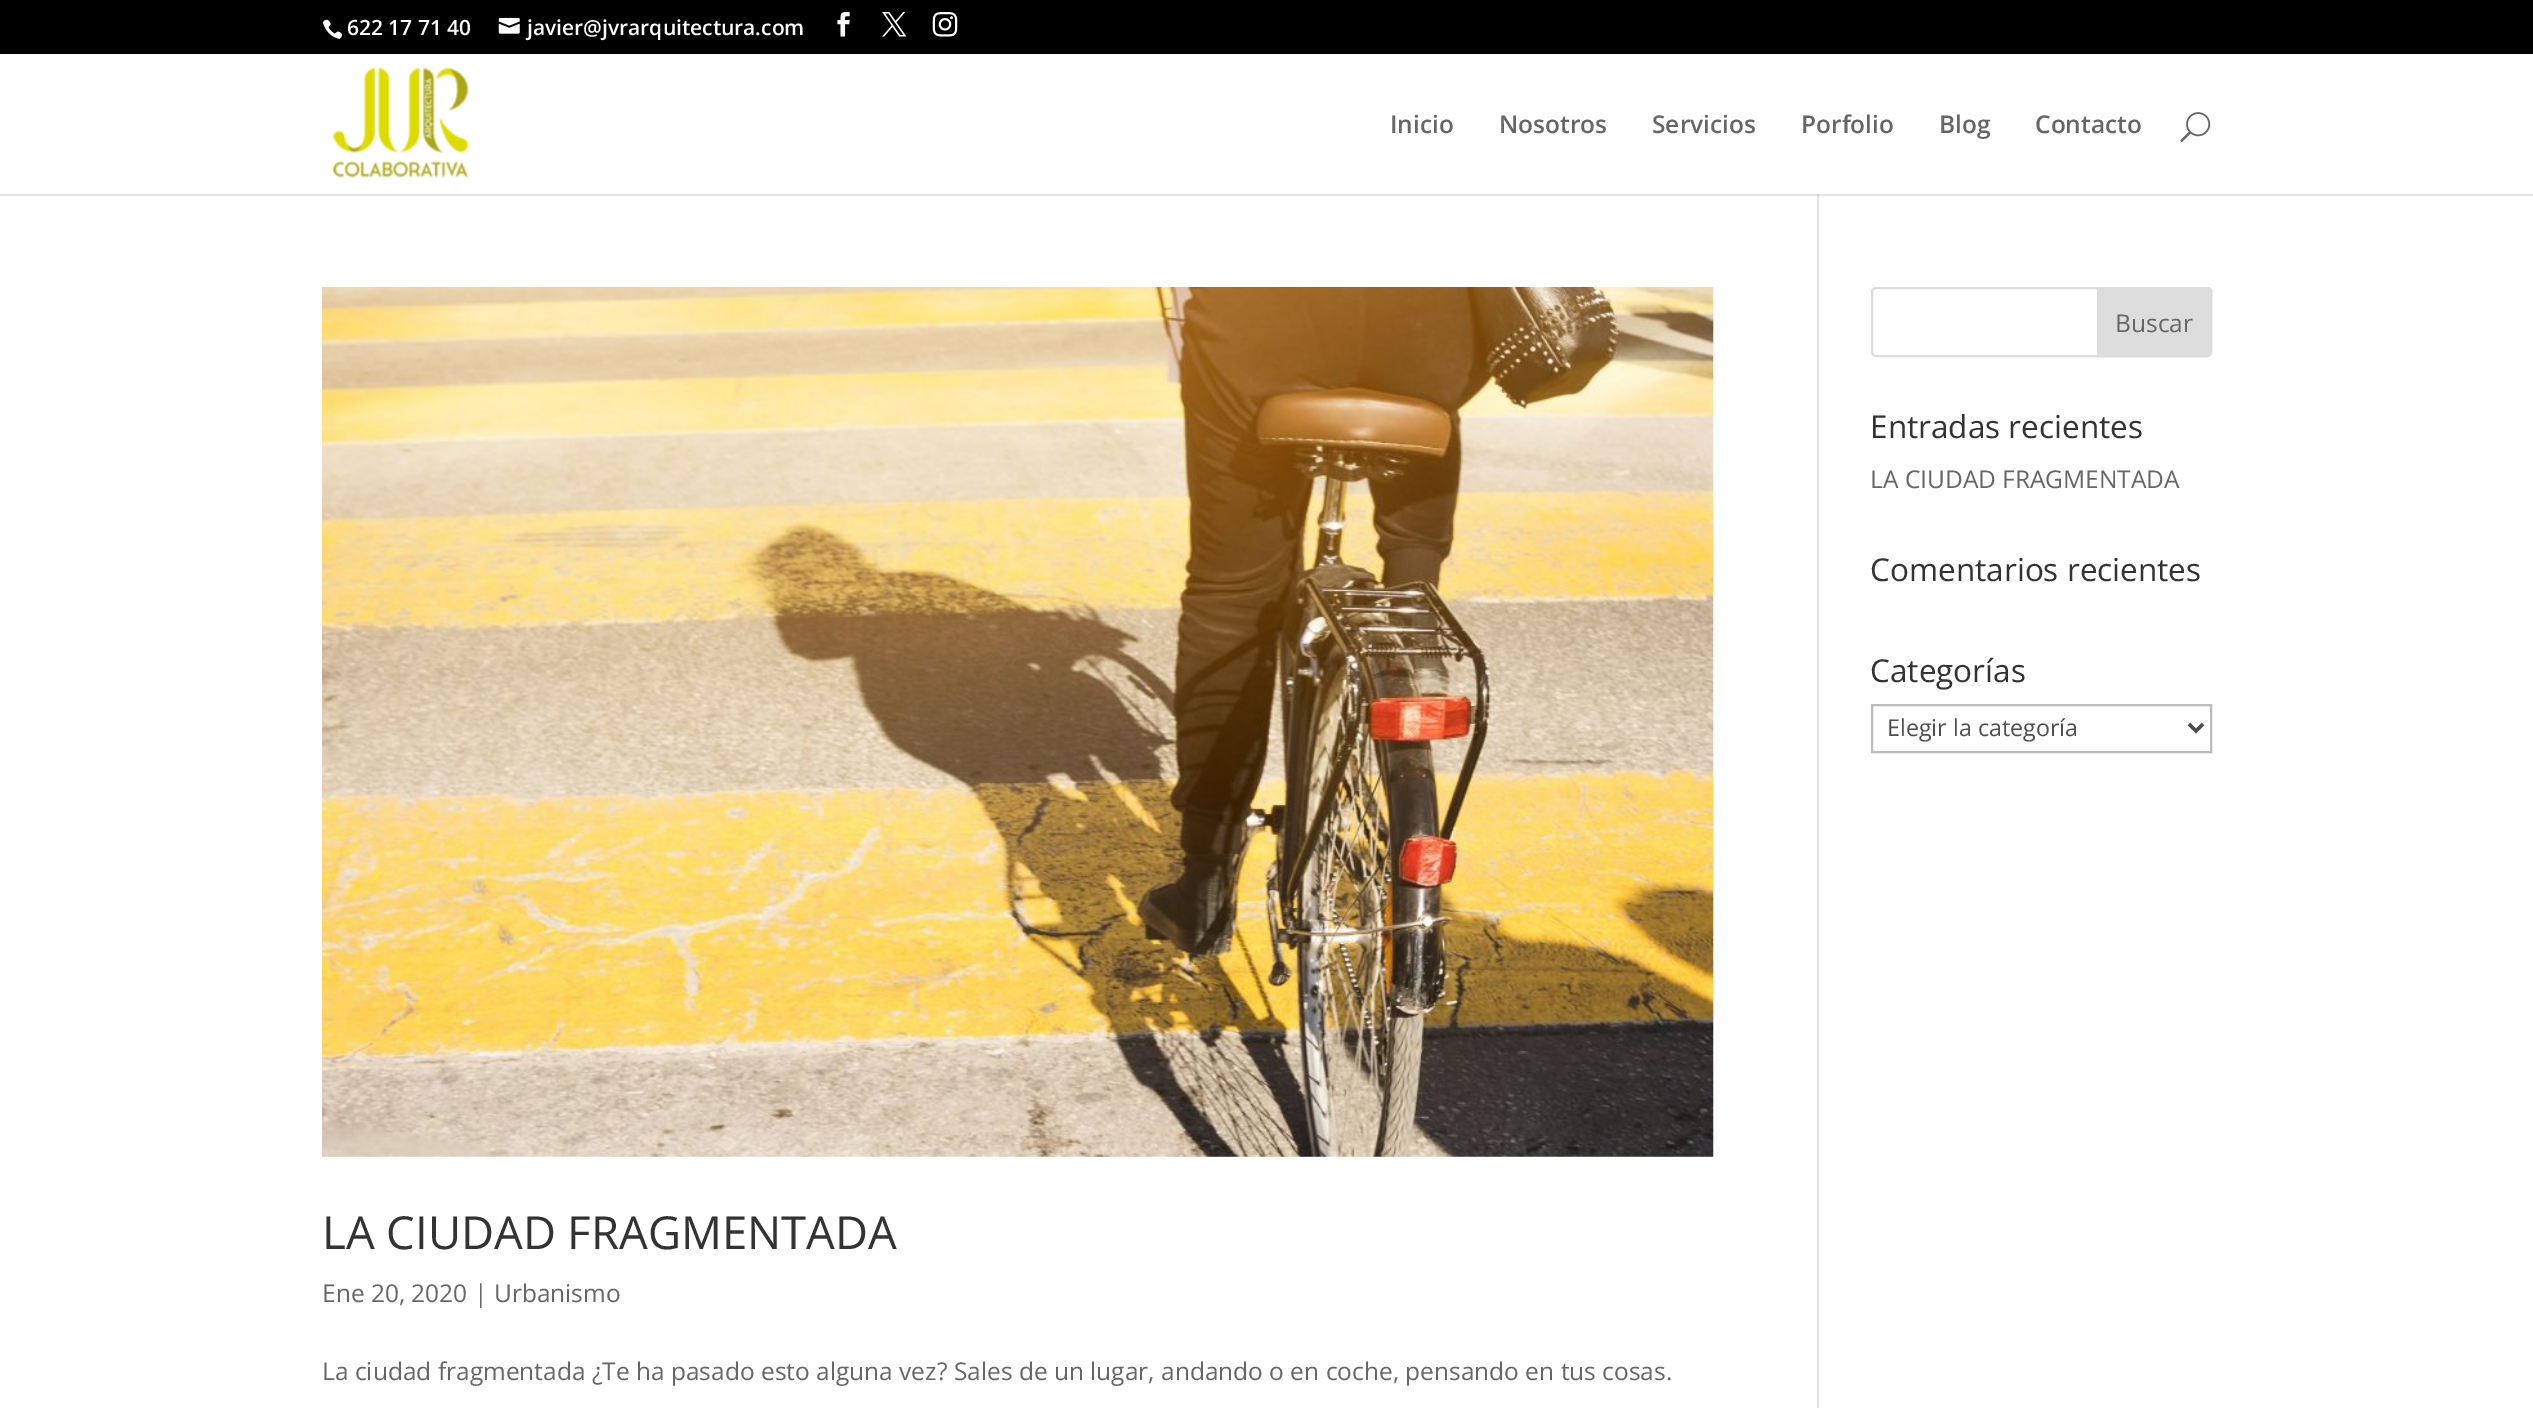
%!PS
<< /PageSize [2533 1408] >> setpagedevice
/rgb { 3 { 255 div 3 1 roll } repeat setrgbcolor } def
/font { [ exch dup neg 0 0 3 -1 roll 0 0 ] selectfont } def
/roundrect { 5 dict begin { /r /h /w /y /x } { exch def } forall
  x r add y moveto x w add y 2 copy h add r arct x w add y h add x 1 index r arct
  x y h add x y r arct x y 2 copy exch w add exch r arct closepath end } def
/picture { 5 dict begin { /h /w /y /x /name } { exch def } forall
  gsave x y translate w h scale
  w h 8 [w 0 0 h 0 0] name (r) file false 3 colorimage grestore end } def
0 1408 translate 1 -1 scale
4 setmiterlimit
255 255 255 rgb
0 0 2533 1408 rectfill
230 230 230 rgb
0 194 2533 2 rectfill
0 0 0 rgb
0 0 2533 54 rectfill
(img/1.rgb) 322 19 21 20 picture
(img/2.rgb) 498 17 22 17 picture
(img/3.rgb) 837 12 13 25 picture
(img/4.rgb) 882 12 25 25 picture
(img/5.rgb) 932 12 26 25 picture
(img/6.rgb) 332 67 137 111 picture
(img/7.rgb) 2180 112 31 30 picture
226 226 226 rgb
1817 196 2 1212 rectfill
203 203 203 rgb
1817 194 2 2 rectfill
221 221 221 rgb
2 setlinewidth
1872 288 339 68 4 roundrect stroke
2098 288 moveto 2207 288 lineto 2209 288 2211 290 2211 292 curveto 2211 352 lineto 2211 354 2209 356 2207 356 curveto 2098 356 lineto closepath gsave fill grestore
stroke
187 187 187 rgb
1872 705 339 47 rectstroke
78 78 78 rgb
3.5 setlinewidth
2189 724 moveto 2196 731 lineto 2203 724 lineto stroke
(img/8.rgb) 322 287 1392 870 picture
/OpenSans-SemiBold 21 font
255 255 255 rgb
347 35 moveto (622 17 71 40) show
527 35 moveto (javier@jvrarquitectura.com) show
/OpenSans-SemiBold 24.5 font
102 102 102 rgb
[
  [(Inicio) 1390 133]
  [(Nosotros) 1499 133]
  [(Servicios) 1652 133]
  [(Porfolio) 1801 133]
  [(Blog) 1939 133]
  [(Contacto) 2035 133]
] { aload pop moveto show } forall
/OpenSans-Regular 24.5 font
2115 332 moveto (Buscar) show
/OpenSans-Regular 31.5 font
51 51 51 rgb
1870 438 moveto (Entradas recientes) show
/OpenSans-Regular 24.5 font
102 102 102 rgb
1870 488 moveto (LA CIUDAD FRAGMENTADA) show
/OpenSans-Regular 31.5 font
51 51 51 rgb
1870 581 moveto (Comentarios recientes) show
1870 682 moveto (Categorías) show
/OpenSans-Regular 23.25 font
78 78 78 rgb
1887 736 moveto (Elegir la categoría) show
/OpenSans-Regular 45.5 font
51 51 51 rgb
322 1249 moveto (LA CIUDAD FRAGMENTADA) show
/OpenSans-Regular 24.5 font
102 102 102 rgb
322 1302 moveto (Ene 20, 2020 | Urbanismo) show
322 1380 moveto (La ciudad fragmentada ¿Te ha pasado esto alguna vez? Sales de un lugar, andando o en coche, pensando en tus cosas.) show
showpage
